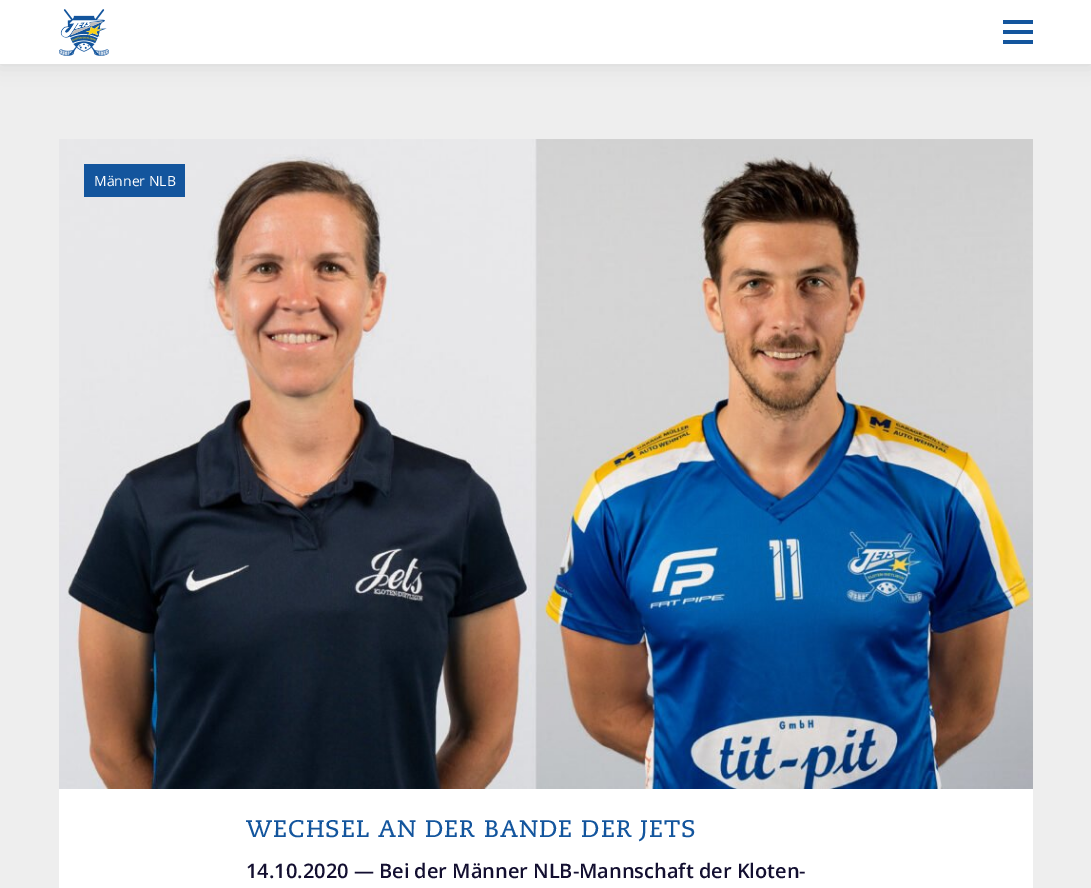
%!PS
<< /PageSize [1091 888] /PageUsesTransparency true >> setpagedevice
/rgb { 3 { 255 div 3 1 roll } repeat setrgbcolor } def
/font { [ exch dup neg 0 0 3 -1 roll 0 0 ] selectfont } def
/alpha { dup .setfillconstantalpha .setstrokeconstantalpha } def
/roundrect { 5 dict begin { /r /h /w /y /x } { exch def } forall
  x r add y moveto x w add y 2 copy h add r arct x w add y h add x 1 index r arct
  x y h add x y r arct x y 2 copy exch w add exch r arct closepath end } def
/shadow { 12 dict begin { /a /b /q /h /w /y /x } { exch def } forall gsave /was 0 def
  9 -2 -9 { dup b mul 4 div /e exch def 1 sub .425 mul 2.718 exch exp 1 add a .99 .min exch div /now exch def
    1 1 now sub 1 was sub div sub alpha /was now def
    w h .min e 2 mul add 0 gt { x e sub y e sub w e 2 mul add h e 2 mul add
      q e add b .6 mul add w h .min 2 div e add .min 0 .max roundrect fill } if } for grestore end } def
/picture { 5 dict begin { /h /w /y /x /name } { exch def } forall
  gsave x y translate w h scale
  w h 8 [w 0 0 h 0 0] name (r) file false 3 colorimage grestore end } def
0 .pushpdf14devicefilter
0 888 translate 1 -1 scale
4 setmiterlimit
238 238 238 rgb
0 0 1091 888 rectfill
63 71 80 rgb
0 0 1091 64 0 10 0.15 shadow
255 255 255 rgb
0 0 1091 64 rectfill
(img/1.rgb) 59 9 50 47 picture
[
  [1003 40 30 4 19 85 157]
  [1003 20 30 4 19 85 157]
  [1003 30 30 4 19 85 157]
  [59 789 974 99 255 255 255]
] { aload pop rgb rectfill } forall
(img/2.rgb) 59 139 974 650 picture
19 85 157 rgb
84 164 101 33 rectfill
/OpenSans-Regular 14 font
255 255 255 rgb
94 186 moveto (Männer NLB) show
/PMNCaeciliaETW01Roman-Regular 24 font
19 85 157 rgb
246 837 moveto 1 0 (WECHSEL AN DER BANDE DER JETS) ashow
/OpenSans-SemiBold 20 font
19 15 48 rgb
246 878 moveto (14.10.2020 — Bei der Männer NLB-Mannschaft der Kloten-) show
.poppdf14devicefilter showpage
